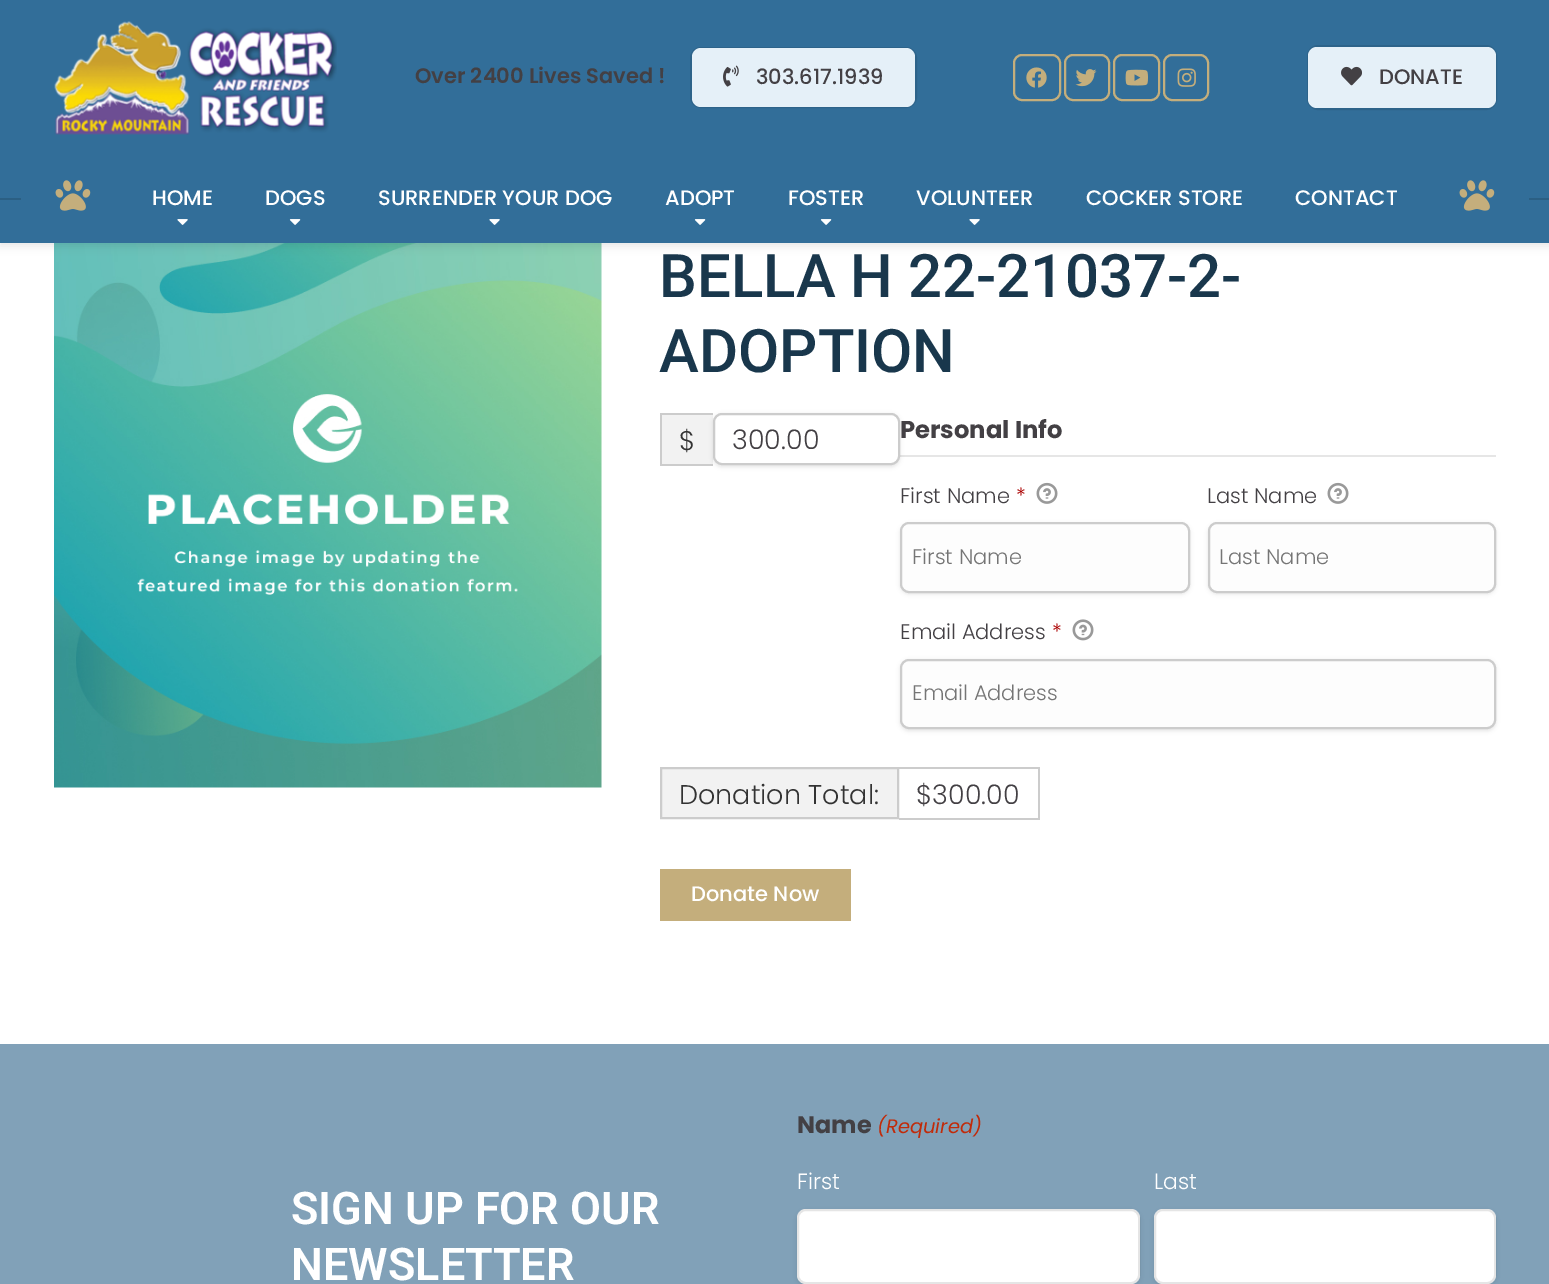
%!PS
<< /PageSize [1549 1284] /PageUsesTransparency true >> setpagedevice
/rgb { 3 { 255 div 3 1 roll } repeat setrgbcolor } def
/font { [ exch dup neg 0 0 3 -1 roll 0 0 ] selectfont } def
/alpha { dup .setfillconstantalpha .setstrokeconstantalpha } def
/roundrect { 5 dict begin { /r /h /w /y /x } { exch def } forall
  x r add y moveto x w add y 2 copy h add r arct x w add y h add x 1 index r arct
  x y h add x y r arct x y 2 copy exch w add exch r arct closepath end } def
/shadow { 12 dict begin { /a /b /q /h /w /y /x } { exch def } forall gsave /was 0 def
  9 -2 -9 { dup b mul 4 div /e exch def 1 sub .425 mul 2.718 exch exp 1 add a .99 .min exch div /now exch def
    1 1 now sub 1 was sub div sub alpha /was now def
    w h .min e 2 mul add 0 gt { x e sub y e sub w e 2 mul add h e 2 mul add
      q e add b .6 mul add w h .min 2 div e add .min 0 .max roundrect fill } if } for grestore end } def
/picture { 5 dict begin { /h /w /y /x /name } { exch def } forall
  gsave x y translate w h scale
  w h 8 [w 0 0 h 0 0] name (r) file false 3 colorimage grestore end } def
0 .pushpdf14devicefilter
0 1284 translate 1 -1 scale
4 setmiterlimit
255 255 255 rgb
0 0 1549 1284 rectfill
(img/11.rgb) 54 243 548 545 picture
0 0 0 rgb
0 3 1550 243 0 4.5 0.1 shadow
50 110 153 rgb
0 0 1549 243 rectfill
(img/1.rgb) 54 21 283 114 picture
45 99 138 rgb
2 setlinewidth
691 48 225 59 10 roundrect stroke
229 240 248 rgb
692 48 223 59 9 roundrect fill
(img/2.rgb) 723 65 16 22 picture
196 174 124 rgb
1014 55 46 45 8 roundrect stroke
(img/3.rgb) 1026 67 21 21 picture
1065 55 44 45 8 roundrect stroke
(img/4.rgb) 1075 69 22 18 picture
1114 55 45 45 8 roundrect stroke
(img/5.rgb) 1125 69 23 17 picture
1164 55 44 45 8 roundrect stroke
(img/6.rgb) 1177 68 19 19 picture
45 99 138 rgb
1308 46 188 63 10 roundrect stroke
229 240 248 rgb
1308 47 188 61 9 roundrect fill
(img/7.rgb) 1341 66 21 20 picture
43 95 131 rgb
0 198 21 2 rectfill
(img/8.rgb) 55 180 36 31 picture
(img/9.rgb) 177 219 11 6 picture
(img/10.rgb) 289 219 12 6 picture
(img/9.rgb) 489 219 11 6 picture
(img/10.rgb) 694 219 12 6 picture
(img/10.rgb) 820 219 12 6 picture
(img/9.rgb) 969 219 11 6 picture
(img/8.rgb) 1459 180 36 31 picture
1529 198 20 2 rectfill
230 230 230 rgb
900 455 596 2 rectfill
(img/12.rgb) 1036 482 22 22 picture
0 0 0 rgb
900 524 290 70 9 2 0.1 shadow
253 253 253 rgb
901 523 288 69 8 roundrect gsave fill grestore
204 204 204 rgb
stroke
(img/12.rgb) 1327 482 22 22 picture
0 0 0 rgb
1208 524 288 70 9 2 0.1 shadow
253 253 253 rgb
1209 523 286 69 8 roundrect gsave fill grestore
204 204 204 rgb
stroke
(img/13.rgb) 1072 619 22 22 picture
0 0 0 rgb
900 660 596 71 9 2 0.1 shadow
253 253 253 rgb
901 660 594 68 8 roundrect gsave fill grestore
204 204 204 rgb
stroke
242 242 242 rgb
661 768 moveto 898 768 lineto 898 818 lineto 661 818 lineto closepath gsave fill grestore
204 204 204 rgb
stroke
[
  [899 767 141 2 204 204 204]
  [1038 767 2 52 204 204 204]
  [899 818 141 2 204 204 204]
  [660 869 191 52 196 174 124]
  [662 415 51 49 242 242 242]
  [660 413 53 2 204 204 204]
  [660 464 53 2 204 204 204]
  [660 413 2 52 204 204 204]
] { aload pop rgb rectfill } forall
0 0 0 rgb
713 414 187 53 9 2 0.1 shadow
255 255 255 rgb
714 414 185 50 8 roundrect gsave fill grestore
204 204 204 rgb
stroke
129 161 184 rgb
0 1044 1549 240 rectfill
0 0 0 rgb
797 1211 343 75 9 2 0.1 shadow
255 255 255 rgb
797 1209 343 75 9 roundrect fill
0.1 alpha
0 0 0 rgb
798 1210 341 73 8 roundrect stroke
1 alpha
1154 1211 342 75 9 2 0.1 shadow
255 255 255 rgb
1154 1209 342 75 9 roundrect fill
0.1 alpha
0 0 0 rgb
1155 1210 340 73 8 roundrect stroke
/Poppins-SemiBold 21 font
1 alpha
67 64 68 rgb
415 83 moveto (Over 2400 Lives Saved !) show
/Poppins-Medium 21 font
756 84 moveto (303.617.1939) show
1379 84 moveto (DONATE) show
255 255 255 rgb
[
  [(HOME) 152 205]
  [(DOGS) 265 205]
  [(SURRENDER YOUR DOG) 378 205]
  [(ADOPT) 665 205]
  [(FOSTER) 788 205]
  [(VOLUNTEER) 916 205]
  [(COCKER STORE) 1086 205]
  [(CONTACT) 1295 205]
] { aload pop moveto show } forall
/Roboto-Medium 60 font
25 55 76 rgb
659 297 moveto (BELLA H 22-21037-2-) show
659 372 moveto (ADOPTION) show
/Poppins-Bold 24.25 font
67 64 68 rgb
900 438 moveto (Personal Info) show
/Poppins-Light 21 font
900 503 moveto (First Name) show
170 0 0 rgb
1016 503 moveto (*) show
117 117 117 rgb
912 564 moveto (First Name) show
67 64 68 rgb
1207 503 moveto (Last Name) show
117 117 117 rgb
1219 564 moveto (Last Name) show
67 64 68 rgb
900 639 moveto (Email Address) show
170 0 0 rgb
1052 639 moveto (*) show
117 117 117 rgb
912 700 moveto (Email Address) show
/Poppins-Light 27 font
51 51 51 rgb
679 804 moveto (Donation Total:) show
67 64 68 rgb
916 804 moveto ($300.00) show
/Poppins-Medium 21 font
255 255 255 rgb
691 901 moveto (Donate Now) show
/Poppins-Light 27 font
51 51 51 rgb
679 450 moveto ($) show
67 64 68 rgb
732 449 moveto (300.00) show
/Poppins-Bold 24 font
797 1133 moveto (Name) show
/Poppins-Italic 19.5 font
192 43 10 rgb
877 1133 moveto (\(Required\)) show
/Poppins-Light 22 font
255 255 255 rgb
797 1189 moveto (First) show
1154 1189 moveto (Last) show
/Roboto-SemiBold 45 font
291 1224 moveto (SIGN UP FOR OUR) show
291 1280 moveto (NEWSLETTER) show
.poppdf14devicefilter showpage
